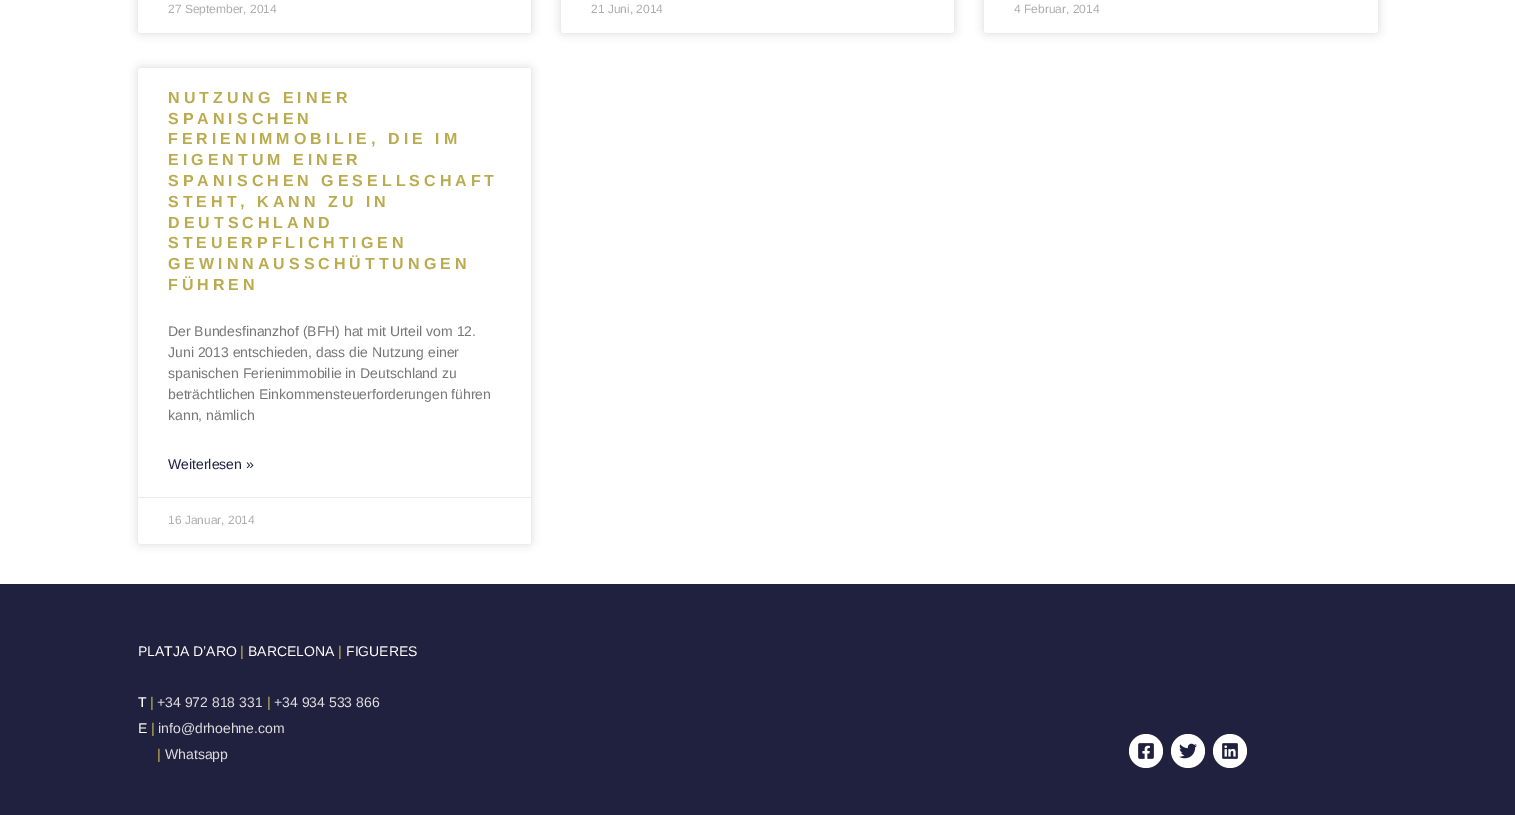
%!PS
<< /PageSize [1515 815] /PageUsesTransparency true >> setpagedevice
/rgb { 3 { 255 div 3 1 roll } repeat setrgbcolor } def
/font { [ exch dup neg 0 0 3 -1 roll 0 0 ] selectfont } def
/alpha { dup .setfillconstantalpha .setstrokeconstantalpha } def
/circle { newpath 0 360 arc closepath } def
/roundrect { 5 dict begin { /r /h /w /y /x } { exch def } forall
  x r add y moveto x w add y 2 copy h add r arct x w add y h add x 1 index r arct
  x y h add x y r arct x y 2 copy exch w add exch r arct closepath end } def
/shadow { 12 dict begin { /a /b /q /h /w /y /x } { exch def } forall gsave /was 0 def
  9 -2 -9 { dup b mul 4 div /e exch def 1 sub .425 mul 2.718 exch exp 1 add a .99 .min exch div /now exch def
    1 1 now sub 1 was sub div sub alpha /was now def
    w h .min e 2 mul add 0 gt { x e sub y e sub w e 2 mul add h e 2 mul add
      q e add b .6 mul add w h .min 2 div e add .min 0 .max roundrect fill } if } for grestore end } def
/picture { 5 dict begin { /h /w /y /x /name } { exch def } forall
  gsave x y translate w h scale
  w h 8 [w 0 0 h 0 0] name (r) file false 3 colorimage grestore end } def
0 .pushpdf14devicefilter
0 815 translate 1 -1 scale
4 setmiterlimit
255 255 255 rgb
0 0 1515 815 rectfill
0 0 0 rgb
138 -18 393 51 3 5 0.15 shadow
255 255 255 rgb
138 -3 393 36 3 roundrect fill
0 0 0 rgb
561 -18 393 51 3 5 0.15 shadow
255 255 255 rgb
561 -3 393 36 3 roundrect fill
0 0 0 rgb
984 -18 394 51 3 5 0.15 shadow
255 255 255 rgb
984 -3 394 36 3 roundrect fill
0 0 0 rgb
138 68 393 476 3 5 0.15 shadow
255 255 255 rgb
138 68 393 476 3 roundrect fill
234 234 234 rgb
138 497 393 1 rectfill
31 33 63 rgb
0 584 1515 231 rectfill
255 255 255 rgb
1146 751 17 circle fill
(img/1.rgb) 1138 743 16 16 picture
1188 751 17 circle fill
(img/2.rgb) 1179 743 18 16 picture
1230 751 17 circle fill
(img/3.rgb) 1222 743 16 16 picture
/LiberationSans-Regular 12 font
173 173 173 rgb
[
  [(27 September, 2014) 168 13]
  [(21 Juni, 2014) 591 13]
  [(4 Februar, 2014) 1014 13]
] { aload pop moveto show } forall
/LiberationSans-Bold 16 font
186 171 79 rgb
168 103 moveto 4 0 (NUTZUNG EINER) ashow
168 124 moveto 4 0 (SPANISCHEN) ashow
168 144 moveto 4 0 (FERIENIMMOBILIE, DIE IM) ashow
168 165 moveto 4 0 (EIGENTUM EINER) ashow
168 186 moveto 4 0 (SPANISCHEN GESELLSCHAFT) ashow
168 207 moveto 4 0 (STEHT, KANN ZU IN) ashow
168 228 moveto 4 0 (DEUTSCHLAND) ashow
168 248 moveto 4 0 (STEUERPFLICHTIGEN) ashow
168 269 moveto 4 0 (GEWINNAUSSCHÜTTUNGEN) ashow
168 290 moveto 4 0 (FÜHREN) ashow
/LiberationSans-Regular 14 font
119 119 119 rgb
[
  [(Der Bundesfinanzhof \(BFH\) hat mit Urteil vom 12.) 168 336]
  [(Juni 2013 entschieden, dass die Nutzung einer) 168 357]
  [(spanischen Ferienimmobilie in Deutschland zu) 168 378]
  [(beträchtlichen Einkommensteuerforderungen führen) 168 399]
  [(kann, nämlich) 168 420]
] { aload pop moveto show } forall
31 33 63 rgb
168 469 moveto (Weiterlesen ») show
/LiberationSans-Regular 12 font
173 173 173 rgb
168 524 moveto (16 Januar, 2014) show
/LiberationSans-Regular 14 font
255 255 255 rgb
138 656 moveto (PLATJA D’ARO) show
186 171 79 rgb
240 656 moveto (|) show
255 255 255 rgb
248 656 moveto (BARCELONA) show
186 171 79 rgb
338 656 moveto (|) show
255 255 255 rgb
346 656 moveto (FIGUERES) show
138 707 moveto (T) show
186 171 79 rgb
150 707 moveto (|) show
221 221 221 rgb
157 707 moveto (+34 972 818 331) show
186 171 79 rgb
267 707 moveto (|) show
221 221 221 rgb
274 707 moveto (+34 934 533 866) show
255 255 255 rgb
138 733 moveto (E) show
186 171 79 rgb
151 733 moveto (|) show
221 221 221 rgb
158 733 moveto (info@drhoehne.com) show
186 171 79 rgb
157 759 moveto (|) show
221 221 221 rgb
165 759 moveto (Whatsapp) show
.poppdf14devicefilter showpage
